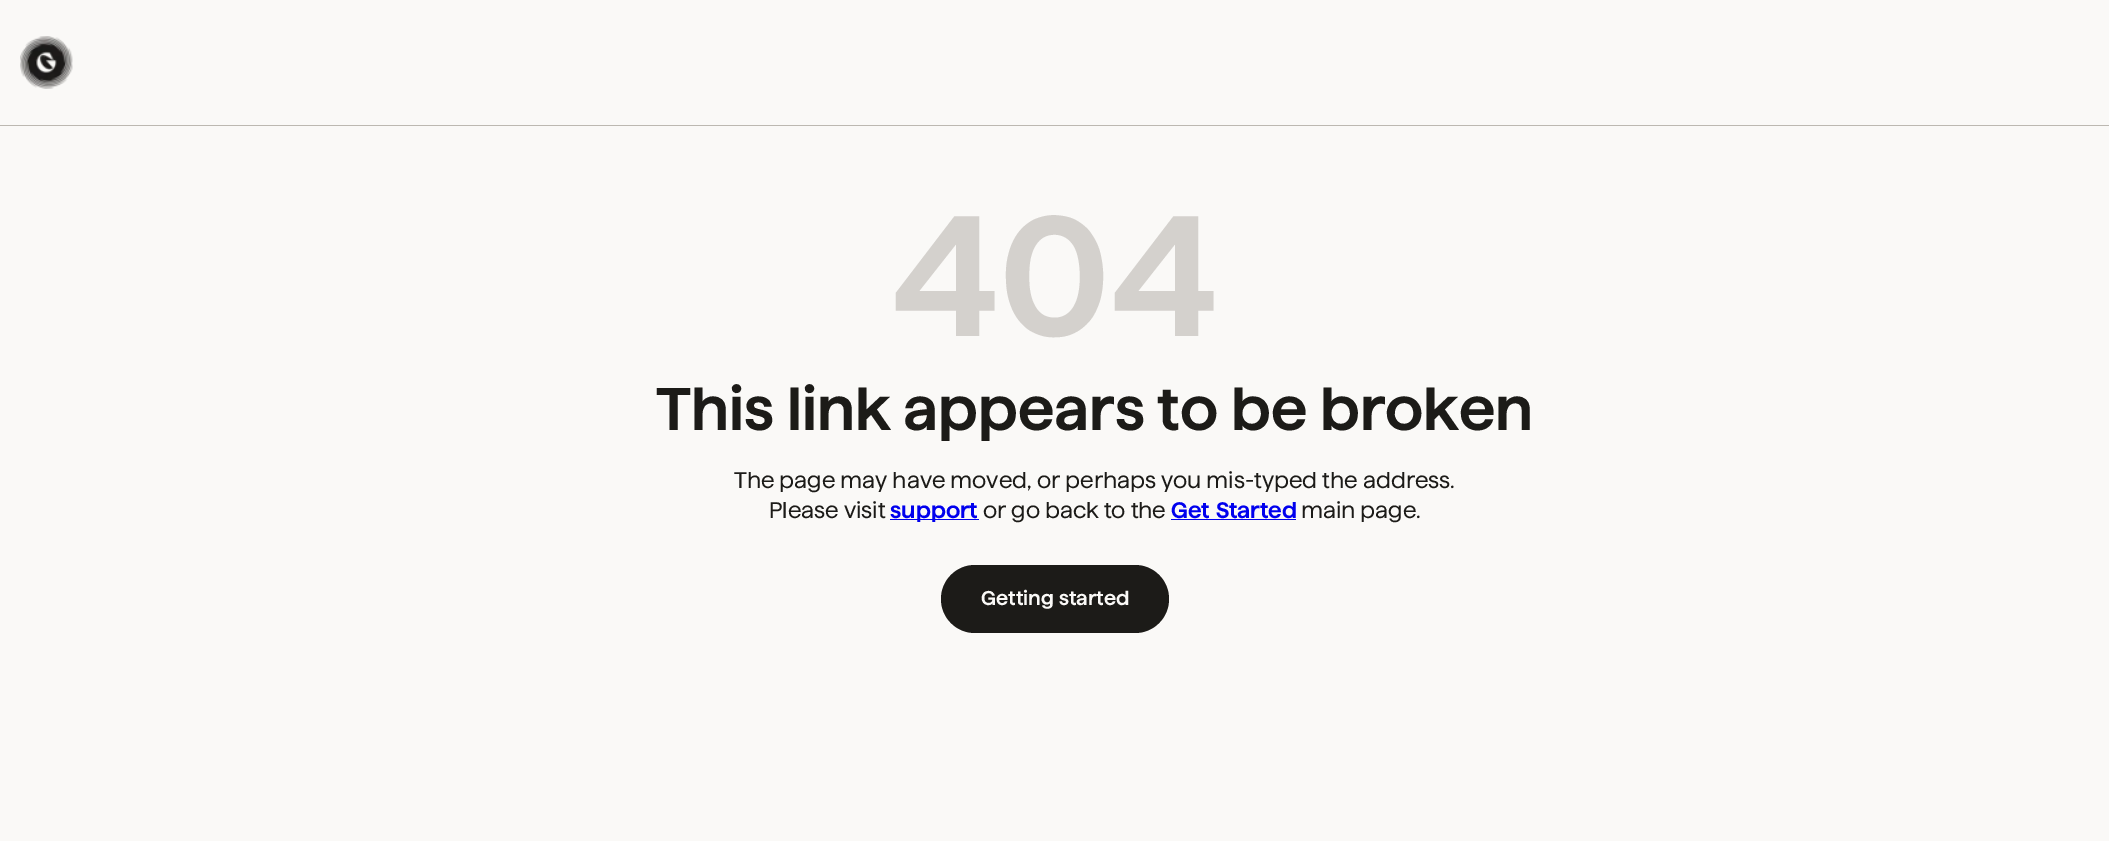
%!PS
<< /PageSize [2109 841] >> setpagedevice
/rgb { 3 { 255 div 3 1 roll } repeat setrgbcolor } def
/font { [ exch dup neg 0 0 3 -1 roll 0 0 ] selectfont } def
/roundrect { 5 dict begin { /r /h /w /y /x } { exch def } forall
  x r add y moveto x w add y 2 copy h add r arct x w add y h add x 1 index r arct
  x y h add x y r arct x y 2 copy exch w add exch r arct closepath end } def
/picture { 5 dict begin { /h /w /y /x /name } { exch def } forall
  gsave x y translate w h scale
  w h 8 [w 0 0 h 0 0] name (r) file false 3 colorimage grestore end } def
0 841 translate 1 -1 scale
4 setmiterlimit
250 249 247 rgb
0 0 2109 841 rectfill
188 184 177 rgb
0 125 2109 1 rectfill
(img/1.rgb) 20 36 53 53 picture
0 0 238 rgb
890 519 89 1 rectfill
1171 519 125 1 rectfill
28 27 24 rgb
941 565 228 68 34 roundrect fill
/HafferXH-SemiBold 171 font
212 209 205 rgb
892 336 moveto (404) show
/HafferXH-SemiBold 60 font
28 27 24 rgb
656 430 moveto (This link appears to be broken) show
/HafferXH-Regular 22.5 font
734 488 moveto (The page may have moved, or perhaps you mis-typed the address.) show
769 518 moveto (Please visit) show
/HafferXH-SemiBold 22.5 font
0 0 238 rgb
890 518 moveto (support) show
/HafferXH-Regular 22.5 font
28 27 24 rgb
983 518 moveto (or go back to the) show
/HafferXH-SemiBold 22.5 font
0 0 238 rgb
1171 518 moveto 1 0 32 (Get Started) widthshow
/HafferXH-Regular 22.5 font
28 27 24 rgb
1301 518 moveto (main page.) show
/HafferXH-SemiBold 20 font
250 249 247 rgb
981 605 moveto 1 0 32 (Getting started) widthshow
showpage
